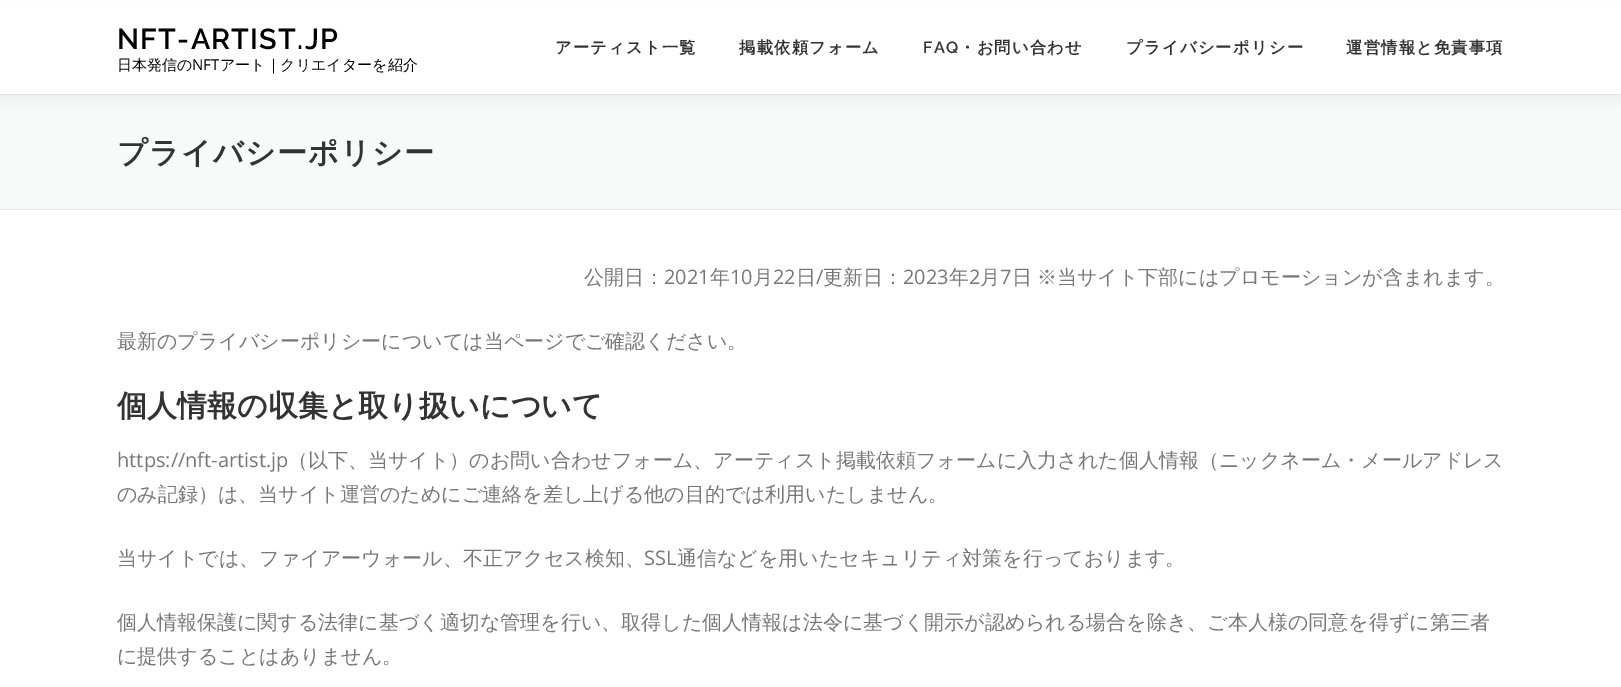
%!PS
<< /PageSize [1621 687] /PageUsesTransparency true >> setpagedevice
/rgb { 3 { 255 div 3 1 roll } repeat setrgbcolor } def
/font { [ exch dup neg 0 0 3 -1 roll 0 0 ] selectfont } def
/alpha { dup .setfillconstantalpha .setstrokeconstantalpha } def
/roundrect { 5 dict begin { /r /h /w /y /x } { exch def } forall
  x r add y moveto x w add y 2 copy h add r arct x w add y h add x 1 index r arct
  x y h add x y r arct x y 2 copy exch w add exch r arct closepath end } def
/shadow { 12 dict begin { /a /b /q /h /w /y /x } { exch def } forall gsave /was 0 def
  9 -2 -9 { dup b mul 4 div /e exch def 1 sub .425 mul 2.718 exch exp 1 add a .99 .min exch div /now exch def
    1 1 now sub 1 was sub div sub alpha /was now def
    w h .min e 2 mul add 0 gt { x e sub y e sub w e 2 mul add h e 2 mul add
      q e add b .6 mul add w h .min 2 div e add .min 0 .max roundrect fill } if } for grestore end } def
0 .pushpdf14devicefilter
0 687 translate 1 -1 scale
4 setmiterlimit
255 255 255 rgb
0 0 1621 687 rectfill
248 249 249 rgb
0 95 1621 114 rectfill
233 233 233 rgb
0 94 1621 1 rectfill
50 50 50 rgb
0 6 1621 94 0 6 0.06 shadow
255 255 255 rgb
0 1 1621 93 rectfill
233 233 233 rgb
0 209 1621 1 rectfill
/Raleway-SemiBold 28.75 font
0 0 0 rgb
117 49 moveto 1.25 0 (NFT-ARTIST.JP) ashow
/WenQuanYiZenHei-Medium 15 font
117 70 moveto (日本発信の) show
/OpenSans-Regular 15 font
192 70 moveto (NFT) show
/WenQuanYiZenHei-Medium 15 font
220 70 moveto (アート｜クリエイターを紹介) show
/WenQuanYiZenHei-Bold 16.25 font
51 51 51 rgb
555 53 moveto 1.25 0 (アーティスト一覧) ashow
739 53 moveto 1.25 0 (掲載依頼フォーム) ashow
/Raleway-SemiBold 16.25 font
923 53 moveto 1.25 0 (FAQ) ashow
/WenQuanYiZenHei-Bold 16.25 font
959 53 moveto 1.25 0 (・お問い合わせ) ashow
1126 53 moveto 1.25 0 (プライバシーポリシー) ashow
1346 53 moveto 1.25 0 (運営情報と免責事項) ashow
/WenQuanYiZenHei-Bold 30 font
117 163 moveto 1.25 0 (プライバシーポリシー) ashow
/WenQuanYiZenHei-Medium 20 font
119 119 119 rgb
584 284 moveto (公開日：) show
/OpenSans-Regular 20 font
664 284 moveto (2021) show
/WenQuanYiZenHei-Medium 20 font
710 284 moveto (年) show
/OpenSans-Regular 20 font
730 284 moveto (10) show
/WenQuanYiZenHei-Medium 20 font
753 284 moveto (月) show
/OpenSans-Regular 20 font
773 284 moveto (22) show
/WenQuanYiZenHei-Medium 20 font
796 284 moveto (日) show
/OpenSans-Regular 20 font
816 284 moveto (/) show
/WenQuanYiZenHei-Medium 20 font
823 284 moveto (更新日：) show
/OpenSans-Regular 20 font
903 284 moveto (2023) show
/WenQuanYiZenHei-Medium 20 font
949 284 moveto (年) show
/OpenSans-Regular 20 font
969 284 moveto (2) show
/WenQuanYiZenHei-Medium 20 font
980 284 moveto (月) show
/OpenSans-Regular 20 font
1000 284 moveto (7) show
/WenQuanYiZenHei-Medium 20 font
[
  [(日) 1012 284]
  [(※当サイト下部にはプロモーションが含まれます。) 1037 284]
  [(最新のプライバシーポリシーについては当ページでご確認ください。) 117 348]
] { aload pop moveto show } forall
/WenQuanYiZenHei-Bold 30 font
51 51 51 rgb
117 416 moveto (個人情報の収集と取り扱いについて) show
/OpenSans-Regular 20 font
119 119 119 rgb
117 467 moveto (https://nft-artist.jp) show
/WenQuanYiZenHei-Medium 20 font
[
  [(（以下、当サイト）のお問い合わせフォーム、アーティスト掲載依頼フォームに入力された個人情報（ニックネーム・メールアドレス) 288 467]
  [(のみ記録）は、当サイト運営のためにご連絡を差し上げる他の目的では利用いたしません。) 117 501]
  [(当サイトでは、ファイアーウォール、不正アクセス検知、) 117 565]
] { aload pop moveto show } forall
/OpenSans-Regular 20 font
644 565 moveto (SSL) show
/WenQuanYiZenHei-Medium 20 font
[
  [(通信などを用いたセキュリティ対策を行っております。) 677 565]
  [(個人情報保護に関する法律に基づく適切な管理を行い、取得した個人情報は法令に基づく開示が認められる場合を除き、ご本人様の同意を得ずに第三者) 117 629]
  [(に提供することはありません。) 117 663]
] { aload pop moveto show } forall
.poppdf14devicefilter showpage
